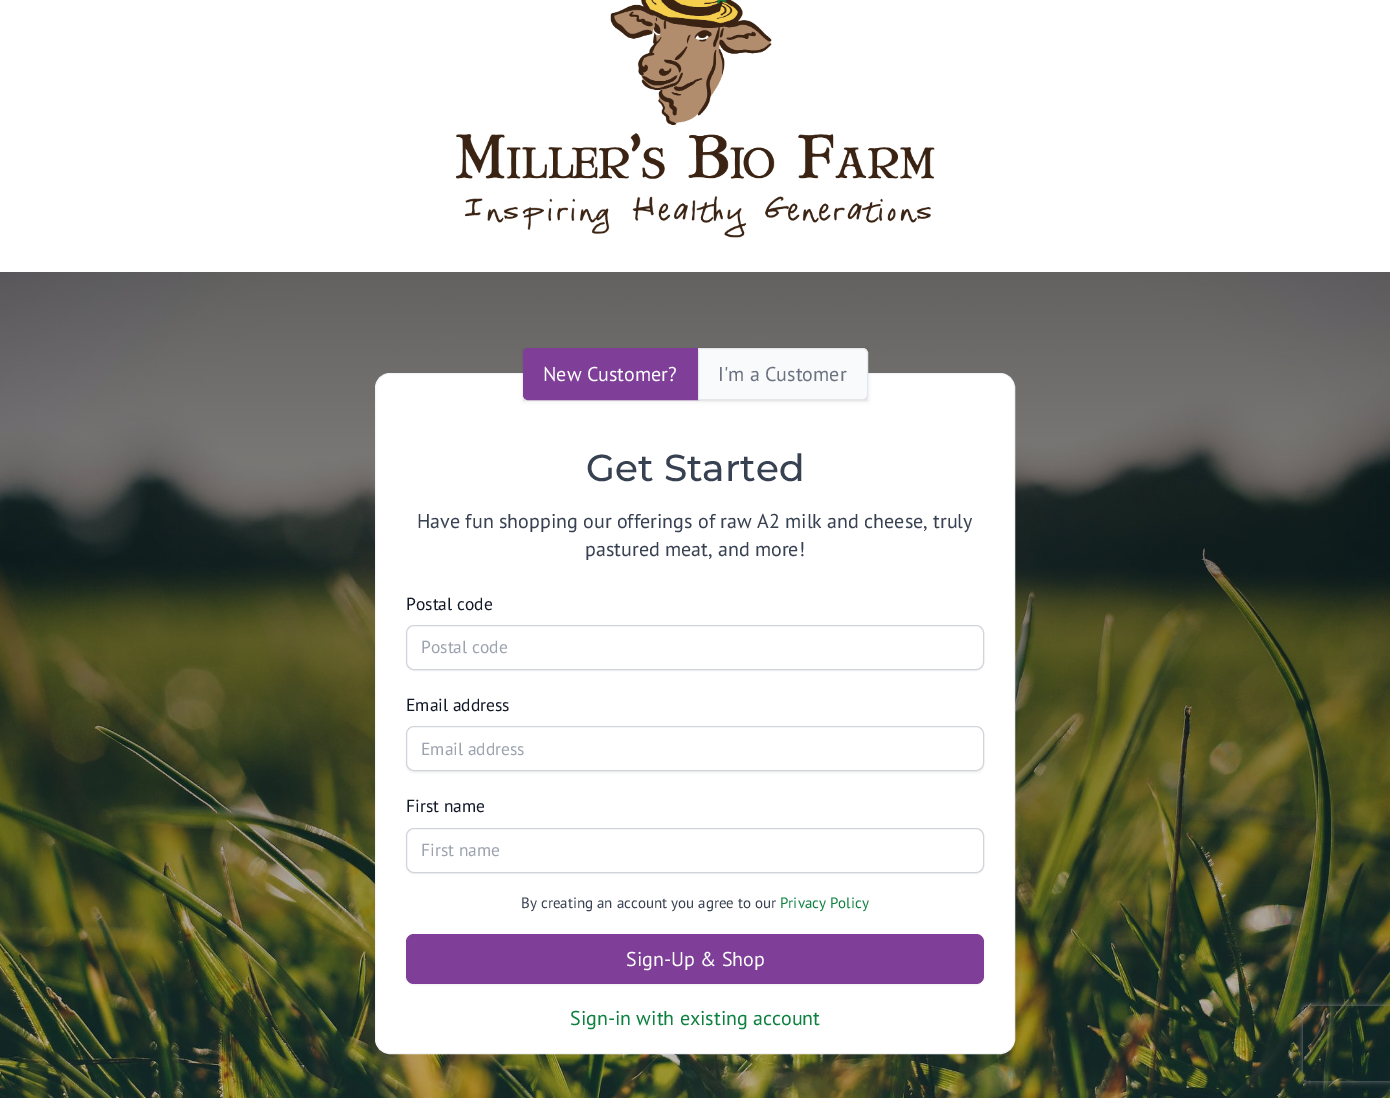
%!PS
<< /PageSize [1390 1098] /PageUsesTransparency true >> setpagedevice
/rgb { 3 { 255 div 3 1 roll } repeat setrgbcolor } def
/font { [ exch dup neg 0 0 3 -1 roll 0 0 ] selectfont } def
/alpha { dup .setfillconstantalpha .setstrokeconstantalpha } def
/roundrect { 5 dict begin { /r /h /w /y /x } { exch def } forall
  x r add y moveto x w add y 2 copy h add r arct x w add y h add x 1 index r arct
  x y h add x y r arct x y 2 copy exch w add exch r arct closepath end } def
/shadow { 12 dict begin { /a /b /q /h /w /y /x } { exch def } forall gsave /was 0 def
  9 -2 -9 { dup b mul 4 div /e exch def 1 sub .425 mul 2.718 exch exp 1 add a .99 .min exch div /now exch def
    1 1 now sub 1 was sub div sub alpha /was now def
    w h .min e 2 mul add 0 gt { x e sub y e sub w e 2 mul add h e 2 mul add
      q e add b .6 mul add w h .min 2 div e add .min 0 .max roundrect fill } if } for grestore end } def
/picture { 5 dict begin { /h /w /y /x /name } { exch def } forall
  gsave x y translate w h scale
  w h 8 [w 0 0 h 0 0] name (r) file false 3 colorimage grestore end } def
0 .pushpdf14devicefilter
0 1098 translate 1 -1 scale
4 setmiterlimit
255 255 255 rgb
0 0 1390 1098 rectfill
(img/1.rgb) 456 0 479 238 picture
(img/2.rgb) 0 272 1390 826 picture
375.5 373.5 639 680 14.5 roundrect gsave fill grestore
243 244 246 rgb
stroke
0 0 0 rgb
524 350 342 50 0 1 0.1 shadow
523 349 345 52 0 2 0.1 shadow
127 63 152 rgb
528 348.5 moveto 698.5 348.5 lineto 698.5 399.5 lineto 528 399.5 lineto 525.5 399.5 523.5 397.5 523.5 395 curveto 523.5 353 lineto 523.5 350.5 525.5 348.5 528 348.5 curveto closepath gsave fill grestore
stroke
249 250 251 rgb
698.5 348.5 moveto 863 348.5 lineto 865.5 348.5 867.5 350.5 867.5 353 curveto 867.5 395 lineto 867.5 397.5 865.5 399.5 863 399.5 curveto 698.5 399.5 lineto closepath gsave fill grestore
229 231 235 rgb
stroke
0 0 0 rgb
406 626 578 45 8 1 0.05 shadow
255 255 255 rgb
406.5 625.5 577 44 7.5 roundrect gsave fill grestore
209 213 219 rgb
stroke
0 0 0 rgb
406 728 578 45 8 1 0.05 shadow
255 255 255 rgb
406.5 726.5 577 44 7.5 roundrect gsave fill grestore
209 213 219 rgb
stroke
0 0 0 rgb
406 829 578 45 8 1 0.05 shadow
255 255 255 rgb
406.5 828.5 577 44 7.5 roundrect gsave fill grestore
209 213 219 rgb
stroke
0 0 0 rgb
406 935 578 50 8 1 0.05 shadow
127 63 152 rgb
406 934 578 50 8 roundrect fill
gsave
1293 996 moveto 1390 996 lineto 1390 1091 lineto 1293 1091 lineto closepath 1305.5 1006 moveto 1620.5 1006 lineto 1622 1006 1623 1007 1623 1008.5 curveto 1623 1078.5 lineto 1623 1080 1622 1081 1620.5 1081 curveto 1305.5 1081 lineto 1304 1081 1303 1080 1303 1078.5 curveto 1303 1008.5 lineto 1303 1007 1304 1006 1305.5 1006 curveto closepath eoclip newpath
128 128 128 rgb
1303 1006 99 75 2.5 3 1 shadow
grestore
/PTSans-Regular 20 font
255 255 255 rgb
543 381 moveto (New Customer?) show
107 114 128 rgb
718 381 moveto (I'm a Customer) show
/Montserrat-Medium 37.5 font
55 65 81 rgb
586 481 moveto (Get Started) show
/PTSans-Regular 20 font
417 528 moveto (Have fun shopping our offerings of raw A2 milk and cheese, truly) show
585 556 moveto (pastured meat, and more!) show
/PTSans-Regular 17.5 font
17 24 39 rgb
406 610 moveto (Postal code) show
156 163 175 rgb
421 653 moveto (Postal code) show
17 24 39 rgb
406 711 moveto (Email address) show
156 163 175 rgb
421 755 moveto (Email address) show
17 24 39 rgb
406 812 moveto (First name) show
156 163 175 rgb
421 856 moveto (First name) show
/PTSans-Regular 15 font
55 65 81 rgb
521 908 moveto (By creating an account you agree to our) show
13 129 64 rgb
780 908 moveto (Privacy Policy) show
/PTSans-Regular 20 font
255 255 255 rgb
626 966 moveto (Sign-Up & Shop) show
13 129 64 rgb
570 1025 moveto (Sign-in with existing account) show
.poppdf14devicefilter showpage
